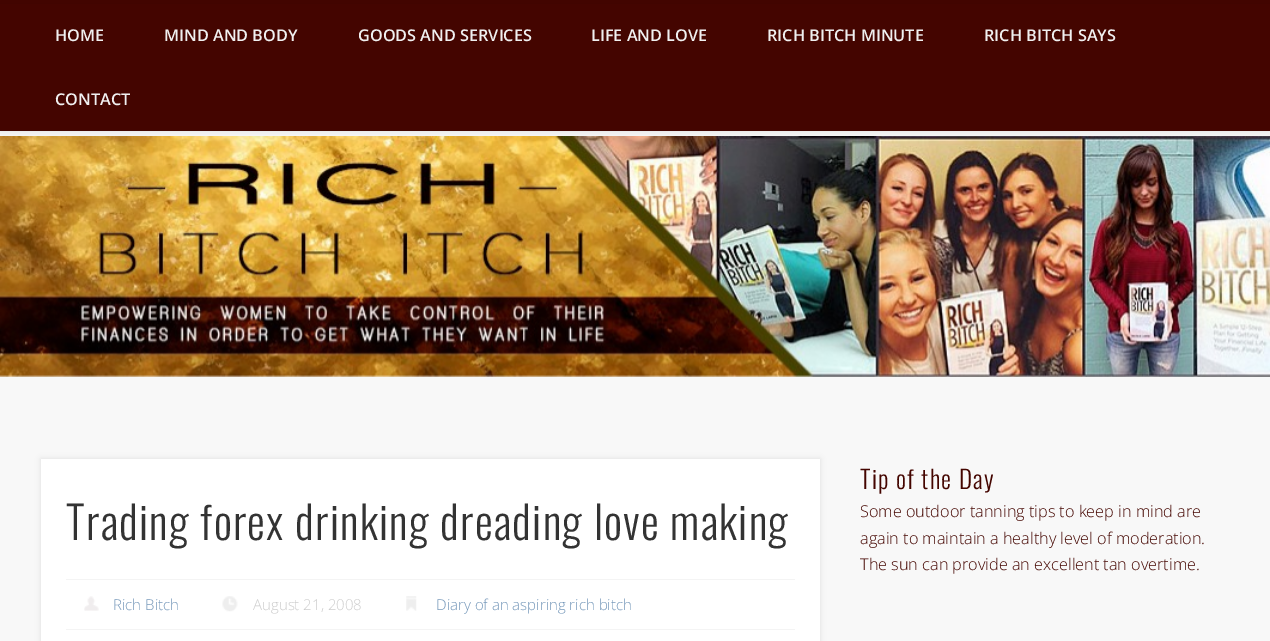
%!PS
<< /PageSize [1270 641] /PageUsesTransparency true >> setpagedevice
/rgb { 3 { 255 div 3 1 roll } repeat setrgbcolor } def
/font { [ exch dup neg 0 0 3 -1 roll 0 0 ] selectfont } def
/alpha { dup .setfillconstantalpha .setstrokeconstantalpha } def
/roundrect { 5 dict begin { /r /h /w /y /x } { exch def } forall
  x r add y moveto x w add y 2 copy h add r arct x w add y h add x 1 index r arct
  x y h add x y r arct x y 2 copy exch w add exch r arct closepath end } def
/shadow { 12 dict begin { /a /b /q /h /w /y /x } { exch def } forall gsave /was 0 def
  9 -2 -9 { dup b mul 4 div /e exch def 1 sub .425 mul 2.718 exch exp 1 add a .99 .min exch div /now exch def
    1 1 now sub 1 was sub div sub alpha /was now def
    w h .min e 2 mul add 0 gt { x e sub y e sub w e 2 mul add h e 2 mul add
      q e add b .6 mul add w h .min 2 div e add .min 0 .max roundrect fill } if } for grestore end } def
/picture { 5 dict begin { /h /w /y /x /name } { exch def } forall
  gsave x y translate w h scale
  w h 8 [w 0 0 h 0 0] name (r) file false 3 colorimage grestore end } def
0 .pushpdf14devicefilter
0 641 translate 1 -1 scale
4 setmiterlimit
248 248 248 rgb
0 0 1270 641 rectfill
68 5 0 rgb
0 0 1270 4 rectfill
(img/1.rgb) 0 136 1270 241 picture
0 0 0 rgb
0 4 1270 127 0 4.5 0.1 shadow
68 5 0 rgb
0 4 1270 127 rectfill
0 0 0 rgb
41 459 779 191 0 3 0.1 shadow
[
  [41 459 779 182 255 255 255]
  [66 579 729 1 244 244 244]
  [66 629 729 1 244 244 244]
] { aload pop rgb rectfill } forall
(img/2.rgb) 84 596 15 15 picture
(img/3.rgb) 222 596 16 16 picture
(img/4.rgb) 406 596 11 15 picture
/OpenSans-SemiBold 16.25 font
240 240 240 rgb
[
  [(HOME) 55 41]
  [(MIND AND BODY) 164 41]
  [(GOODS AND SERVICES) 358 41]
  [(LIFE AND LOVE) 591 41]
  [(RICH BITCH MINUTE) 767 41]
  [(RICH BITCH SAYS) 984 41]
  [(CONTACT) 55 105]
] { aload pop moveto show } forall
/Oswald-Light 45 font
51 51 51 rgb
66 540 moveto 1.25 0 (Trading forex drinking dreading love making) ashow
/OpenSans-Light 15 font
117 151 185 rgb
113 610 moveto (Rich Bitch) show
204 204 204 rgb
253 610 moveto (August 21, 2008) show
117 151 185 rgb
436 610 moveto (Diary of an aspiring rich bitch) show
/Oswald-Light 25 font
68 5 0 rgb
860 489 moveto 1.25 0 (Tip of the Day) ashow
/OpenSans-Light 16.25 font
[
  [(Some outdoor tanning tips to keep in mind are) 860 517]
  [(again to maintain a healthy level of moderation.) 860 544]
  [(The sun can provide an excellent tan overtime.) 860 570]
] { aload pop moveto show } forall
.poppdf14devicefilter showpage
